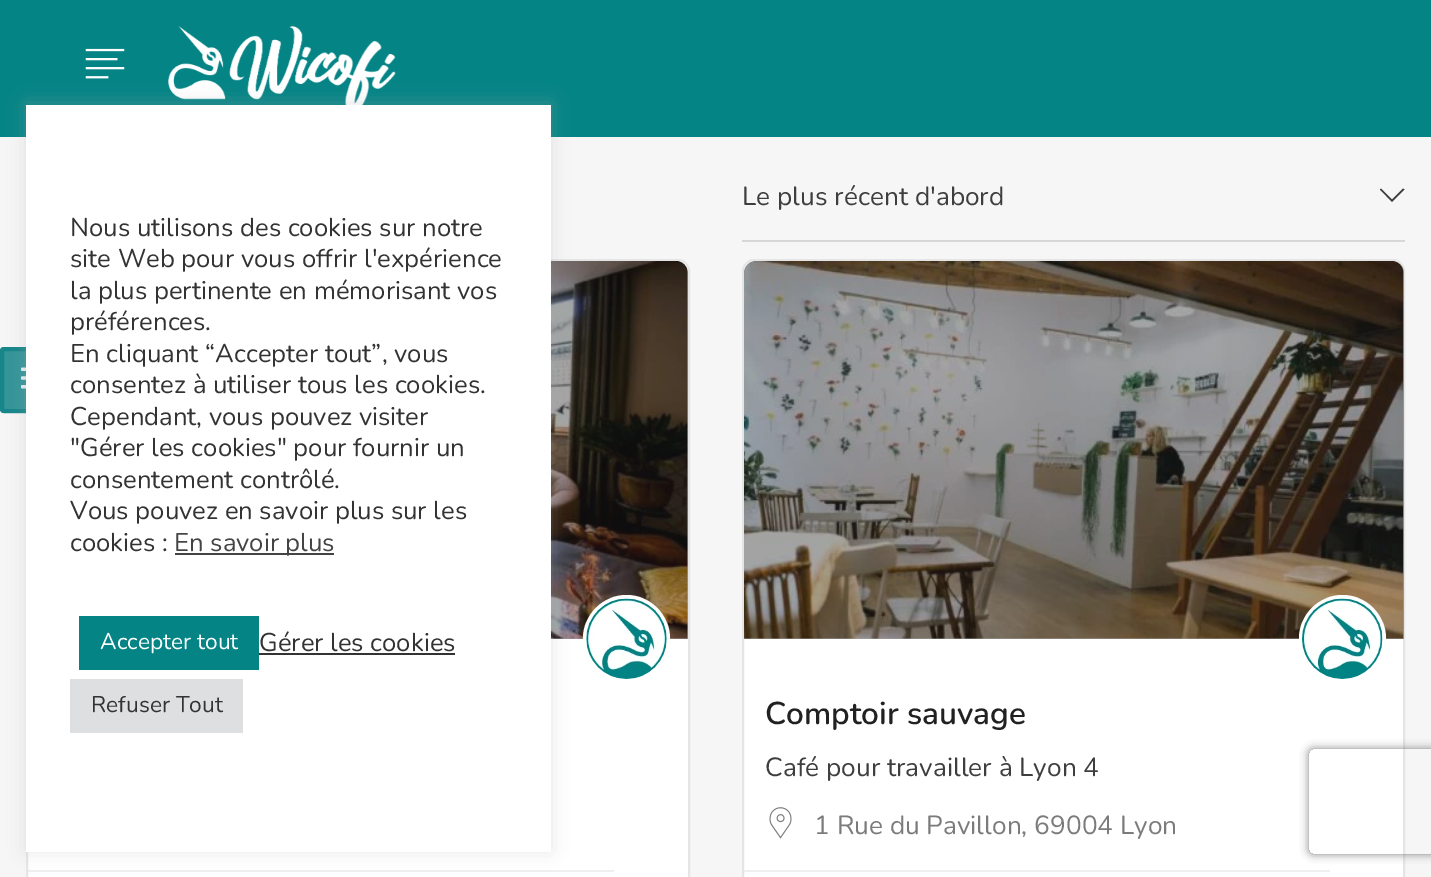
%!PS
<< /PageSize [1431 877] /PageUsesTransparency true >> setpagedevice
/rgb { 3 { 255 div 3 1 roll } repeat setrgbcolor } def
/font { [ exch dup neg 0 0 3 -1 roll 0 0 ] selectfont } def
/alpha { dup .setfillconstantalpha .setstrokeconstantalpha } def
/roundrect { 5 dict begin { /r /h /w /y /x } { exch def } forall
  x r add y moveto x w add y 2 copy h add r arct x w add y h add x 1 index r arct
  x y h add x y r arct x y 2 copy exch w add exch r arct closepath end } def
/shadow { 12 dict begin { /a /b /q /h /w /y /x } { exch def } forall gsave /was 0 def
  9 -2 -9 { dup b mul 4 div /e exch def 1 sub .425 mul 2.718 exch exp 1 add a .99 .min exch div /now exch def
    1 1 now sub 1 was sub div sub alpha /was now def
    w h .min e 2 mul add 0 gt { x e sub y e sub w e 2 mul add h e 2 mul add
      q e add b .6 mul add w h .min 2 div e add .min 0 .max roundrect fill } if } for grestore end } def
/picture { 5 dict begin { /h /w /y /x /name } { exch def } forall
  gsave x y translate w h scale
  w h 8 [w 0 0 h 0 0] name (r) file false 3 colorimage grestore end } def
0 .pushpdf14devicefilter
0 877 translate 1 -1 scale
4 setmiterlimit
246 246 246 rgb
0 0 1431 877 rectfill
5 132 134 rgb
0 0 1431 137 rectfill
(img/1.rgb) 85 48 40 31 picture
(img/2.rgb) 168 26 228 79 picture
255 255 255 rgb
27 260 662 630 11 roundrect gsave fill grestore
229 229 229 rgb
2 setlinewidth
stroke
(img/4.rgb) 551 261 137 378 picture
0.4 alpha
33 33 33 rgb
40 261 moveto 676 261 lineto 682.5 261 688 266.5 688 273 curveto 688 639 lineto 28 639 lineto 28 273 lineto 28 266.5 33.5 261 40 261 curveto closepath fill
0.85 alpha
17 131 135 rgb
0 347 70 66 4 roundrect fill
4 setlinewidth
2 349 66 62 2 roundrect stroke
1 alpha
(img/3.rgb) 21 367 5 22 picture
239 239 239 rgb
28 870 586 2 rectfill
172 171 171 rgb
26 103 525 748 0 9 0.3 shadow
[
  [26 105 525 747 255 255 255]
  [175 553 159 2 68 68 68]
  [79 616 180 54 5 132 134]
  [259 653 196 2 51 51 51]
  [70 679 173 54 222 223 224]
  [742 240 663 2 215 215 215]
] { aload pop rgb rectfill } forall
62 62 62 rgb
1404.5 189.5 moveto 1392 202 lineto 1380 189.5 lineto 1381 188.5 lineto 1392 199.5 lineto 1403 188.5 lineto closepath fill
255 255 255 rgb
583 595 87 88 43.5 roundrect fill
(img/5.rgb) 586 598 81 81 picture
743 260 661 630 11 roundrect gsave fill grestore
229 229 229 rgb
2 setlinewidth
stroke
(img/6.rgb) 744 261 660 378 picture
0.4 alpha
33 33 33 rgb
756 261 moveto 1392 261 lineto 1398.5 261 1404 266.5 1404 273 curveto 1404 639 lineto 744 639 lineto 744 273 lineto 744 266.5 749.5 261 756 261 curveto closepath fill
1 alpha
255 255 255 rgb
1299 595 87 88 43.5 roundrect fill
(img/7.rgb) 1302 598 81 81 picture
(img/8.rgb) 769 807 23 32 picture
239 239 239 rgb
744 870 586 2 rectfill
gsave
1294 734 moveto 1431 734 lineto 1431 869 lineto 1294 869 lineto closepath 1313 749 moveto 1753 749 lineto 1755 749 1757 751 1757 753 curveto 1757 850 lineto 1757 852 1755 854 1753 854 curveto 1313 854 lineto 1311 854 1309 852 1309 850 curveto 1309 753 lineto 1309 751 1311 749 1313 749 curveto closepath eoclip newpath
128 128 128 rgb
1309 749 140 105 4 4.5 1 shadow
grestore
/Nunito-Regular 25.7 font
51 51 51 rgb
[
  [(Nous utilisons des cookies sur notre) 70 236]
  [(site Web pour vous offrir l'expérience) 70 267]
  [(la plus pertinente en mémorisant vos) 70 299]
  [(préférences.) 70 330]
  [(En cliquant “Accepter tout”, vous) 70 362]
  [(consentez à utiliser tous les cookies.) 70 393]
  [(Cependant, vous pouvez visiter) 70 425]
  [("Gérer les cookies" pour fournir un) 70 456]
  [(consentement contrôlé.) 70 488]
  [(Vous pouvez en savoir plus sur les) 70 519]
  [(cookies :) 70 551]
] { aload pop moveto show } forall
68 68 68 rgb
174 551 moveto (En savoir plus) show
/Nunito-Regular 22.75 font
255 255 255 rgb
100 649 moveto (Accepter tout) show
/Nunito-Regular 25.7 font
51 51 51 rgb
259 651 moveto (Gérer les cookies) show
/Nunito-Regular 22.75 font
91 712 moveto (Refuser Tout) show
/Nunito-Regular 26.25 font
62 62 62 rgb
742 205 moveto (Le plus récent d'abord) show
/Nunito-SemiBold 31.5 font
33 33 33 rgb
765 724 moveto (Comptoir sauvage) show
/Nunito-Regular 26.25 font
62 62 62 rgb
765 776 moveto (Café pour travailler à Lyon 4) show
123 123 123 rgb
814 834 moveto (1 Rue du Pavillon, 69004 Lyon) show
.poppdf14devicefilter showpage
